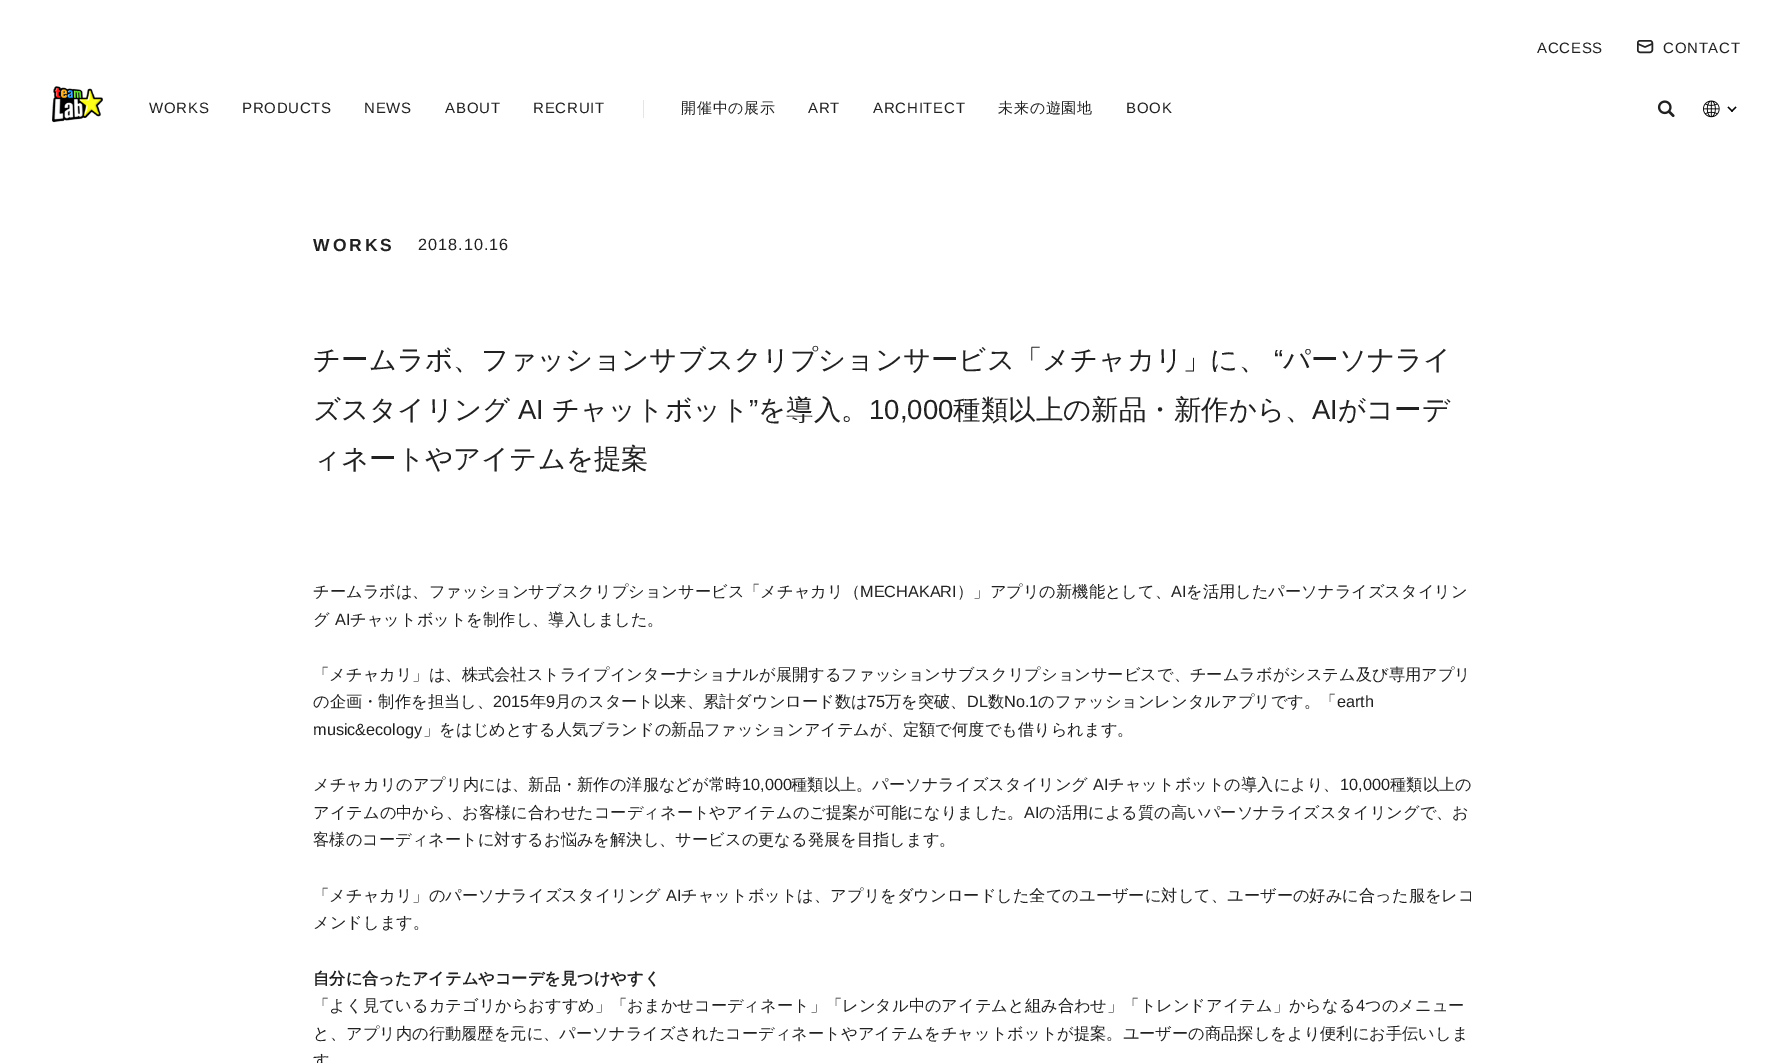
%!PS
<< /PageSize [1791 1063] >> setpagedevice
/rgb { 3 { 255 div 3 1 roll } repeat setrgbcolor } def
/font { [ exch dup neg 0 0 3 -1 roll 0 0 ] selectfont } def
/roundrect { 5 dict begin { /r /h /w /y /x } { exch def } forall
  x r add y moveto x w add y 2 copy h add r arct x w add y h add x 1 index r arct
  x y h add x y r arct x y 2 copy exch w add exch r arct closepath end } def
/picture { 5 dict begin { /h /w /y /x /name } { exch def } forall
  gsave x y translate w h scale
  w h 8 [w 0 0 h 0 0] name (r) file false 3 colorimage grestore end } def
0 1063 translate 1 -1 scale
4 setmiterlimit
255 255 255 rgb
0 0 1791 1063 rectfill
36 36 36 rgb
1.5 setlinewidth
1637.75 40.75 14.5 11.5 2.25 roundrect stroke
1.4 setlinewidth
1638 44 moveto 1645 47 lineto 1652 44 lineto stroke
(img/1.rgb) 52 86 51 37 picture
229 229 229 rgb
643 100 1 18 rectfill
(img/2.rgb) 1657 100 18 18 picture
(img/3.rgb) 1703 100 17 18 picture
0 0 0 rgb
1735.5 106.5 moveto 1736.5 107.5 lineto 1732 112 lineto 1731 111 lineto closepath fill
1728.5 106.5 moveto 1733 111 lineto 1732 112 lineto 1727.5 107.5 lineto closepath fill
/LiberationSans-Regular 15 font
33 33 33 rgb
1537 53 moveto 0.75 0 (ACCESS) ashow
1663 53 moveto 0.75 0 (CONTACT) ashow
149 113 moveto 0.75 0 (WORKS) ashow
242 113 moveto 0.75 0 (PRODUCTS) ashow
364 113 moveto 0.75 0 (NEWS) ashow
445 113 moveto 0.75 0 (ABOUT) ashow
533 113 moveto 0.75 0 (RECRUIT) ashow
/WenQuanYiZenHei-Medium 15 font
681 113 moveto 0.75 0 (開催中の展示) ashow
/LiberationSans-Regular 15 font
808 113 moveto 0.75 0 (ART) ashow
873 113 moveto 0.75 0 (ARCHITECT) ashow
/WenQuanYiZenHei-Medium 15 font
998 113 moveto 0.75 0 (未来の遊園地) ashow
/LiberationSans-Regular 15 font
1126 113 moveto 0.75 0 (BOOK) ashow
/LiberationSans-Bold 17.5 font
313 251 moveto 3 0 (WORKS) ashow
/LiberationSans-Regular 16.25 font
418 250 moveto 1 0 (2018.10.16) ashow
/WenQuanYiZenHei-Medium 27.5 font
313 369 moveto (チームラボ、ファッションサブスクリプションサービス「メチャカリ」に、) show
/LiberationSans-Regular 27.5 font
1274 369 moveto (“) show
/WenQuanYiZenHei-Medium 27.5 font
1283 369 moveto (パーソナライ) show
313 419 moveto (ズスタイリング) show
/LiberationSans-Regular 27.5 font
518 419 moveto (AI) show
/WenQuanYiZenHei-Medium 27.5 font
552 419 moveto (チャットボット) show
/LiberationSans-Regular 27.5 font
749 419 moveto (”) show
/WenQuanYiZenHei-Medium 27.5 font
758 419 moveto (を導入。) show
/LiberationSans-Regular 27.5 font
869 419 moveto (10,000) show
/WenQuanYiZenHei-Medium 27.5 font
953 419 moveto (種類以上の新品・新作から、) show
/LiberationSans-Regular 27.5 font
1312 419 moveto (AI) show
/WenQuanYiZenHei-Medium 27.5 font
1338 419 moveto (がコーデ) show
313 468 moveto (ィネートやアイテムを提案) show
/WenQuanYiZenHei-Medium 16.25 font
313 597 moveto (チームラボは、ファッションサブスクリプションサービス「メチャカリ（) show
/LiberationSans-Regular 16.25 font
860 597 moveto (MECHAKARI) show
/WenQuanYiZenHei-Medium 16.25 font
957 597 moveto (）」アプリの新機能として、) show
/LiberationSans-Regular 16.25 font
1171 597 moveto (AI) show
/WenQuanYiZenHei-Medium 16.25 font
1186 597 moveto (を活用したパーソナライズスタイリン) show
313 625 moveto (グ) show
/LiberationSans-Regular 16.25 font
335 625 moveto (AI) show
/WenQuanYiZenHei-Medium 16.25 font
[
  [(チャットボットを制作し、導入しました。) 350 625]
  [(「メチャカリ」は、株式会社ストライプインターナショナルが展開するファッションサブスクリプションサービスで、チームラボがシステム及び専用アプリ) 313 680]
  [(の企画・制作を担当し、) 313 707]
] { aload pop moveto show } forall
/LiberationSans-Regular 16.25 font
493 707 moveto (2015) show
/WenQuanYiZenHei-Medium 16.25 font
530 707 moveto (年) show
/LiberationSans-Regular 16.25 font
546 707 moveto (9) show
/WenQuanYiZenHei-Medium 16.25 font
555 707 moveto (月のスタート以来、累計ダウンロード数は) show
/LiberationSans-Regular 16.25 font
867 707 moveto (75) show
/WenQuanYiZenHei-Medium 16.25 font
885 707 moveto (万を突破、) show
/LiberationSans-Regular 16.25 font
967 707 moveto (DL) show
/WenQuanYiZenHei-Medium 16.25 font
988 707 moveto (数) show
/LiberationSans-Regular 16.25 font
1004 707 moveto (No.1) show
/WenQuanYiZenHei-Medium 16.25 font
1038 707 moveto (のファッションレンタルアプリです。「) show
/LiberationSans-Regular 16.25 font
1337 707 moveto (earth) show
313 735 moveto (music&ecology) show
/WenQuanYiZenHei-Medium 16.25 font
423 735 moveto (」をはじめとする人気ブランドの新品ファッションアイテムが、定額で何度でも借りられます。) show
313 790 moveto (メチャカリのアプリ内には、新品・新作の洋服などが常時) show
/LiberationSans-Regular 16.25 font
742 790 moveto (10,000) show
/WenQuanYiZenHei-Medium 16.25 font
791 790 moveto (種類以上。パーソナライズスタイリング) show
/LiberationSans-Regular 16.25 font
1093 790 moveto (AI) show
/WenQuanYiZenHei-Medium 16.25 font
1108 790 moveto (チャットボットの導入により、) show
/LiberationSans-Regular 16.25 font
1340 790 moveto (10,000) show
/WenQuanYiZenHei-Medium 16.25 font
1390 790 moveto (種類以上の) show
313 818 moveto (アイテムの中から、お客様に合わせたコーディネートやアイテムのご提案が可能になりました。) show
/LiberationSans-Regular 16.25 font
1024 818 moveto (AI) show
/WenQuanYiZenHei-Medium 16.25 font
[
  [(の活用による質の高いパーソナライズスタイリングで、お) 1039 818]
  [(客様のコーディネートに対するお悩みを解決し、サービスの更なる発展を目指します。) 313 845]
  [(「メチャカリ」のパーソナライズスタイリング) 313 901]
] { aload pop moveto show } forall
/LiberationSans-Regular 16.25 font
666 901 moveto (AI) show
/WenQuanYiZenHei-Medium 16.25 font
681 901 moveto (チャットボットは、アプリをダウンロードした全てのユーザーに対して、ユーザーの好みに合った服をレコ) show
313 928 moveto (メンドします。) show
/WenQuanYiZenHei-Bold 16.25 font
313 984 moveto (自分に合ったアイテムやコーデを見つけやすく) show
/WenQuanYiZenHei-Medium 16.25 font
313 1011 moveto (「よく見ているカテゴリからおすすめ」「おまかせコーディネート」「レンタル中のアイテムと組み合わせ」「トレンドアイテム」からなる) show
/LiberationSans-Regular 16.25 font
1356 1011 moveto (4) show
/WenQuanYiZenHei-Medium 16.25 font
[
  [(つのメニュー) 1365 1011]
  [(と、アプリ内の行動履歴を元に、パーソナライズされたコーディネートやアイテムをチャットボットが提案。ユーザーの商品探しをより便利にお手伝いしま) 313 1039]
  [(す) 313 1066]
] { aload pop moveto show } forall
showpage
